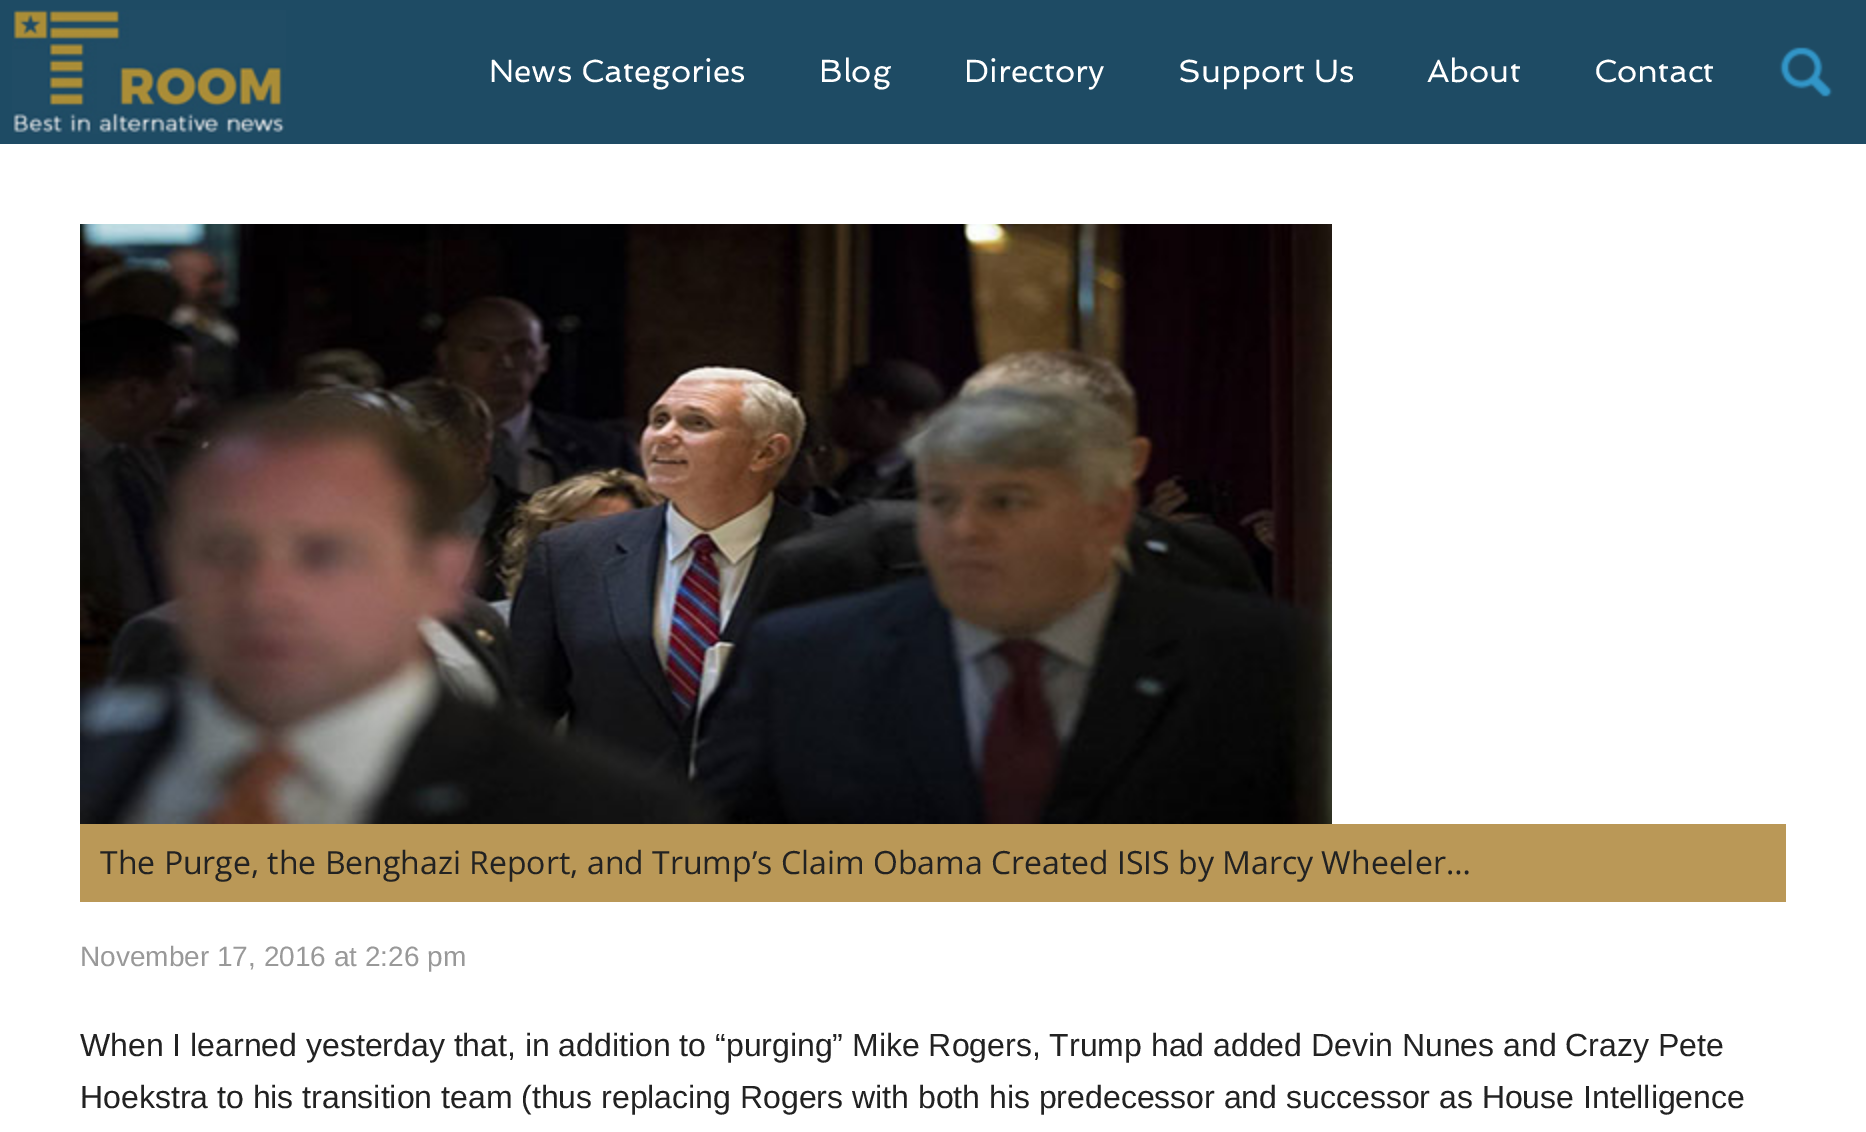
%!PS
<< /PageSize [1866 1132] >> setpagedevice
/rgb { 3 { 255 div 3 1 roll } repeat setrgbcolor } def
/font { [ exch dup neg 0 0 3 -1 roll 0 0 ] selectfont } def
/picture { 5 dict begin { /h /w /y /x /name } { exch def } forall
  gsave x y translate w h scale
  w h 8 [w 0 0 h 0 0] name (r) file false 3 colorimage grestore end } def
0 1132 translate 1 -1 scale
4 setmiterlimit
255 255 255 rgb
0 0 1866 1132 rectfill
30 75 100 rgb
0 0 1866 144 rectfill
(img/1.rgb) 12 10 274 124 picture
(img/2.rgb) 1779 47 54 50 picture
(img/3.rgb) 80 224 1252 600 picture
186 152 87 rgb
80 824 1706 78 rectfill
/Spinnaker-Regular 32 font
255 255 255 rgb
[
  [(News Categories) 489 82]
  [(Blog) 819 82]
  [(Directory) 964 82]
  [(Support Us) 1178 82]
  [(About) 1427 82]
  [(Contact) 1594 82]
] { aload pop moveto show } forall
/OpenSans-Regular 32 font
34 34 34 rgb
100 874 moveto (The Purge, the Benghazi Report, and Trump’s Claim Obama Created ISIS by Marcy Wheeler…) show
/LiberationSans-Regular 28 font
153 153 153 rgb
80 966 moveto (November 17, 2016 at 2:26 pm) show
/LiberationSans-Regular 32 font
34 34 34 rgb
80 1056 moveto (When I learned yesterday that, in addition to “purging” Mike Rogers, Trump had added Devin Nunes and Crazy Pete) show
80 1108 moveto (Hoekstra to his transition team \(thus replacing Rogers with both his predecessor and successor as House Intelligence) show
showpage
